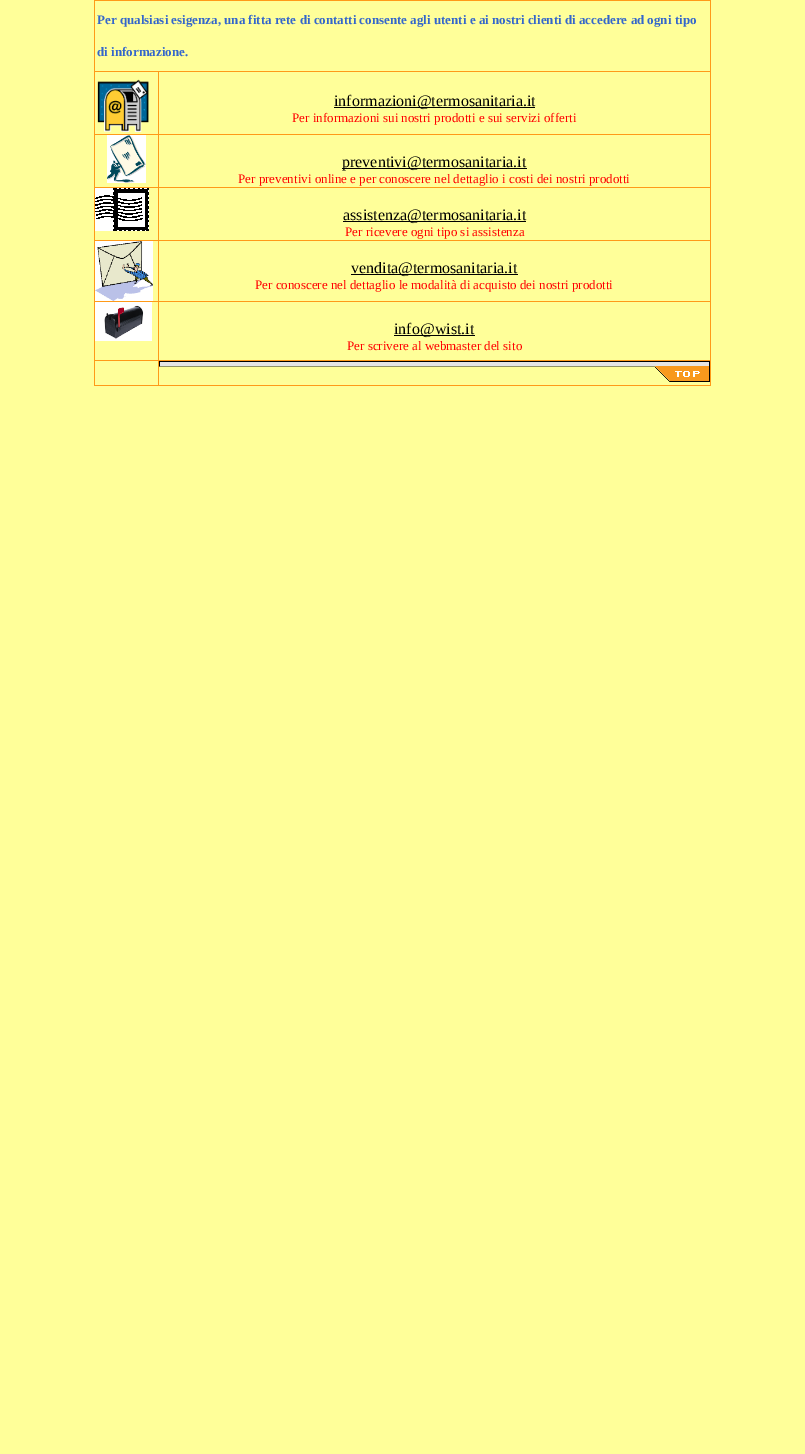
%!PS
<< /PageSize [805 1454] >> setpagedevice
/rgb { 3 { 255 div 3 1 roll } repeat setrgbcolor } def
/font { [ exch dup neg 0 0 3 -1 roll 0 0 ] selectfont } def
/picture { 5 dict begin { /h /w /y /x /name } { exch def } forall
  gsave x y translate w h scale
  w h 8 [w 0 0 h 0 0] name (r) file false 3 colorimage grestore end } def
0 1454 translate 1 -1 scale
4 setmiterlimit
255 255 153 rgb
0 0 805 1454 rectfill
[
  [94 0 617 1 255 154 24]
  [710 0 1 386 255 154 24]
  [94 385 617 1 255 154 24]
  [94 0 1 386 255 154 24]
  [158 71 553 1 255 154 24]
  [158 134 553 1 255 154 24]
  [158 187 553 1 255 154 24]
  [158 240 553 1 255 154 24]
  [158 301 553 1 255 154 24]
  [158 360 553 1 255 154 24]
  [158 360 1 26 255 154 24]
  [94 360 65 1 255 154 24]
  [158 301 1 60 255 154 24]
  [94 301 65 1 255 154 24]
  [158 240 1 62 255 154 24]
  [94 240 65 1 255 154 24]
  [158 187 1 54 255 154 24]
  [94 187 65 1 255 154 24]
  [158 134 1 54 255 154 24]
  [94 134 65 1 255 154 24]
  [158 71 1 64 255 154 24]
  [94 71 65 1 255 154 24]
] { aload pop rgb rectfill } forall
(img/1.rgb) 97 79 52 53 picture
0 0 0 rgb
334 107 201 1 rectfill
(img/2.rgb) 107 135 39 48 picture
342 168 185 1 rectfill
(img/3.rgb) 95 188 54 43 picture
343 221 183 1 rectfill
(img/4.rgb) 95 241 58 60 picture
351 274 167 1 rectfill
(img/5.rgb) 95 302 57 39 picture
394 335 81 1 rectfill
(img/6.rgb) 159 361 551 21 picture
/LiberationSerif-Bold 13 font
51 102 204 rgb
97 24 moveto (Per qualsiasi esigenza, una fitta rete di contatti consente agli utenti e ai nostri clienti di accedere ad ogni tipo) show
97 56 moveto (di informazione.) show
/LiberationSerif-Regular 16 font
0 0 0 rgb
334 106 moveto (informazioni@termosanitaria.it) show
/LiberationSerif-Regular 13 font
255 0 0 rgb
292 122 moveto (Per informazioni sui nostri prodotti e sui servizi offerti) show
/LiberationSerif-Regular 16 font
0 0 0 rgb
342 167 moveto (preventivi@termosanitaria.it) show
/LiberationSerif-Regular 13 font
255 0 0 rgb
238 183 moveto (Per preventivi online e per conoscere nel dettaglio i costi dei nostri prodotti) show
/LiberationSerif-Regular 16 font
0 0 0 rgb
343 220 moveto (assistenza@termosanitaria.it) show
/LiberationSerif-Regular 13 font
255 0 0 rgb
345 236 moveto (Per ricevere ogni tipo si assistenza) show
/LiberationSerif-Regular 16 font
0 0 0 rgb
351 273 moveto (vendita@termosanitaria.it) show
/LiberationSerif-Regular 13 font
255 0 0 rgb
255 289 moveto (Per conoscere nel dettaglio le modalità di acquisto dei nostri prodotti) show
/LiberationSerif-Regular 16 font
0 0 0 rgb
394 334 moveto (info@wist.it) show
/LiberationSerif-Regular 13 font
255 0 0 rgb
347 350 moveto (Per scrivere al webmaster del sito) show
showpage
